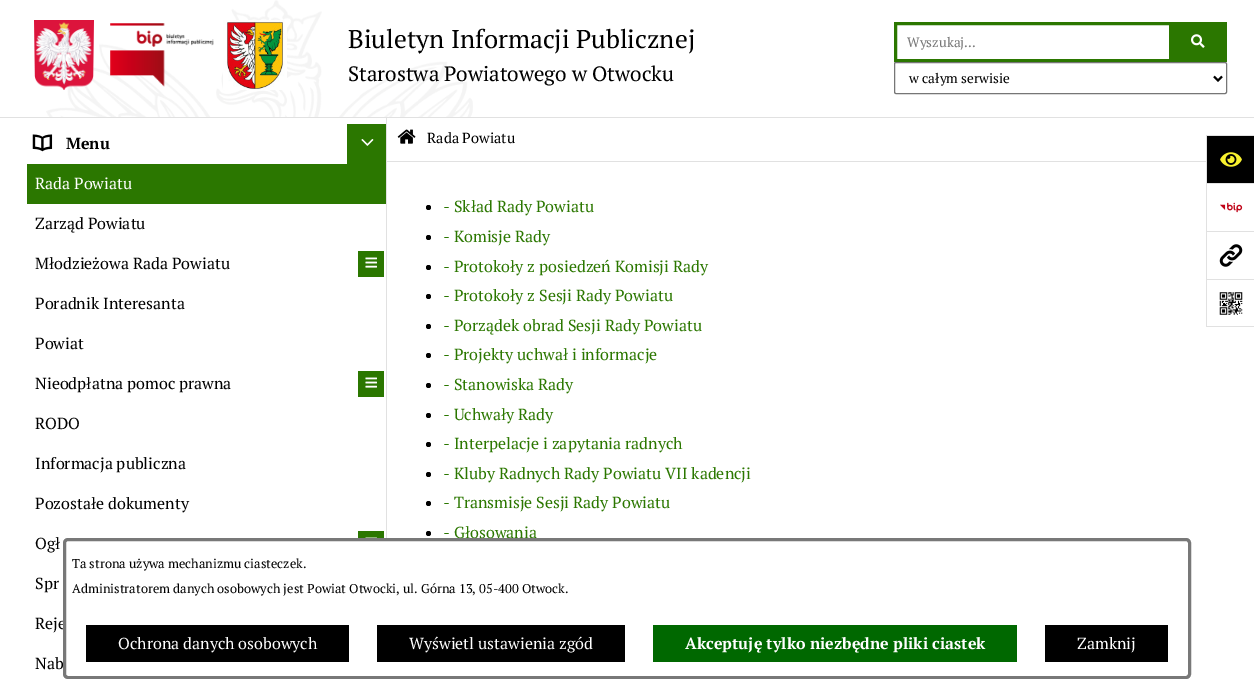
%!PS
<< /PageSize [1254 679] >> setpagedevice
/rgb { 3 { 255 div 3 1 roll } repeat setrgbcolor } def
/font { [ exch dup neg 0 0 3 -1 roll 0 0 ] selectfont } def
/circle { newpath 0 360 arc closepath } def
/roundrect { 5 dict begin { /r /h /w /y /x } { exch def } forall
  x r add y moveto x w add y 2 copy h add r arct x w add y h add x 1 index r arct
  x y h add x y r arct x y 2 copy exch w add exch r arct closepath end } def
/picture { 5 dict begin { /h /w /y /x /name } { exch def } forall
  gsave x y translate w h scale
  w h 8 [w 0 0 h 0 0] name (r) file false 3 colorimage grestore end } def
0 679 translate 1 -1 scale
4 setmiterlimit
255 255 255 rgb
0 0 1254 679 rectfill
225 225 225 rgb
386 117 1 421 rectfill
0 117 1254 1 rectfill
(img/1.rgb) 46 0 427 117 picture
(img/2.rgb) 34 20 60 70 picture
(img/3.rgb) 110 23 104 64 picture
(img/4.rgb) 223 20 64 70 picture
43 119 0 rgb
3 setlinewidth
895.5 23.5 275 37 rectstroke
1172 22 55 40 rectfill
(img/5.rgb) 1191 34 14 14 picture
118 118 118 rgb
1 setlinewidth
894.5 62.5 332 31 1.5 roundrect stroke
0 0 0 rgb
2 setlinewidth
1214 76.5 moveto 1218 80.5 lineto 1222 76.5 lineto stroke
(img/6.rgb) 32 134 21 18 picture
43 119 0 rgb
347 124 39 40 rectfill
(img/7.rgb) 361 139 13 7 picture
27 164 359 40 rectfill
358 251 26 26 rectfill
(img/8.rgb) 365 257 12 11 picture
358 371 26 26 rectfill
(img/8.rgb) 365 377 12 11 picture
358 531 26 7 rectfill
(img/9.rgb) 365 537 12 1 picture
[
  [1207 136 47 47 0 0 0]
  [1206 135 48 1 225 225 225]
  [1206 135 1 48 225 225 225]
] { aload pop rgb rectfill } forall
(img/10.rgb) 1220 152 22 15 picture
1206 183 48 1 rectfill
1206 183 1 48 rectfill
(img/11.rgb) 1220 202 23 11 picture
1206 231 48 1 rectfill
1206 231 1 48 rectfill
(img/12.rgb) 1219 244 24 23 picture
[
  [1206 279 48 1 225 225 225]
  [1206 326 48 1 225 225 225]
  [1206 279 1 48 225 225 225]
] { aload pop rgb rectfill } forall
(img/13.rgb) 1219 292 24 23 picture
387 161 819 1 rectfill
(img/14.rgb) 397 129 19 15 picture
0 0 0 rgb
428.5 207.5 2.5 circle fill
428.5 237.5 2.5 circle fill
428.5 267.5 2.5 circle fill
428.5 296.5 2.5 circle fill
428.5 326.5 2.5 circle fill
428.5 355.5 2.5 circle fill
428.5 385.5 2.5 circle fill
428.5 415.5 2.5 circle fill
428.5 444.5 2.5 circle fill
428.5 474.5 2.5 circle fill
428.5 503.5 2.5 circle fill
428.5 533.5 2.5 circle fill
/PTSerif-Regular 25.6 font
348 48 moveto (Biuletyn Informacji Publicznej) show
/PTSerif-Regular 20.75 font
348 81 moveto (Starostwa Powiatowego w Otwocku) show
/PTSerif-Regular 13.5 font
117 117 117 rgb
907 47 moveto (Wyszukaj...) show
0 0 0 rgb
909 83 moveto (w całym serwisie) show
/PTSerif-Bold 16 font
66 149 moveto (Menu) show
/PTSerif-Regular 16 font
255 255 255 rgb
35 189 moveto (Rada Powiatu) show
0 0 0 rgb
[
  [(Zarząd Powiatu) 35 229]
  [(Młodzieżowa Rada Powiatu) 35 269]
  [(Poradnik Interesanta) 35 309]
  [(Powiat) 35 349]
  [(Nieodpłatna pomoc prawna) 35 389]
  [(RODO) 35 429]
  [(Informacja publiczna) 35 469]
  [(Pozostałe dokumenty) 35 509]
  [(Ogł) 35 549]
  [(Spr) 35 589]
  [(Reje) 35 629]
  [(Nab) 35 669]
] { aload pop moveto show } forall
/PTSerif-Regular 14.5 font
427 143 moveto (Rada Powiatu) show
/PTSerif-Regular 16 font
43 119 0 rgb
[
  [(- Skład Rady Powiatu) 443 212]
  [(- Komisje Rady) 443 242]
  [(- Protokoły z posiedzeń Komisji Rady) 443 272]
  [(- Protokoły z Sesji Rady Powiatu) 443 301]
  [(- Porządek obrad Sesji Rady Powiatu) 443 331]
  [(- Projekty uchwał i informacje) 443 360]
  [(- Stanowiska Rady) 443 390]
  [(- Uchwały Rady) 443 420]
  [(- Interpelacje i zapytania radnych) 443 449]
  [(- Kluby Radnych Rady Powiatu VII kadencji) 443 479]
  [(- Transmisje Sesji Rady Powiatu) 443 508]
  [(- Głosowania) 443 538]
] { aload pop moveto show } forall
255 255 255 rgb
64.5 539.5 1125 138 3.5 roundrect gsave fill grestore
120 120 120 rgb
3 setlinewidth
stroke
/PTSerif-Regular 12.8 font
0 0 0 rgb
72 568 moveto (Ta strona używa mechanizmu ciasteczek.) show
72 593 moveto (Administratorem danych osobowych jest Powiat Otwocki, ul. Górna 13, 05-400 Otwock.) show
86 625 263 37 rectfill
/PTSerif-Regular 16 font
255 255 255 rgb
118 649 moveto (Ochrona danych osobowych) show
0 0 0 rgb
377 625 248 37 rectfill
255 255 255 rgb
409 649 moveto (Wyświetl ustawienia zgód) show
0 104 0 rgb
653 625 364 37 rectfill
/PTSerif-Bold 16 font
255 255 255 rgb
685 649 moveto (Akceptuję tylko niezbędne pliki ciastek) show
0 0 0 rgb
1045 625 123 37 rectfill
/PTSerif-Regular 16 font
255 255 255 rgb
1077 649 moveto (Zamknij) show
showpage
